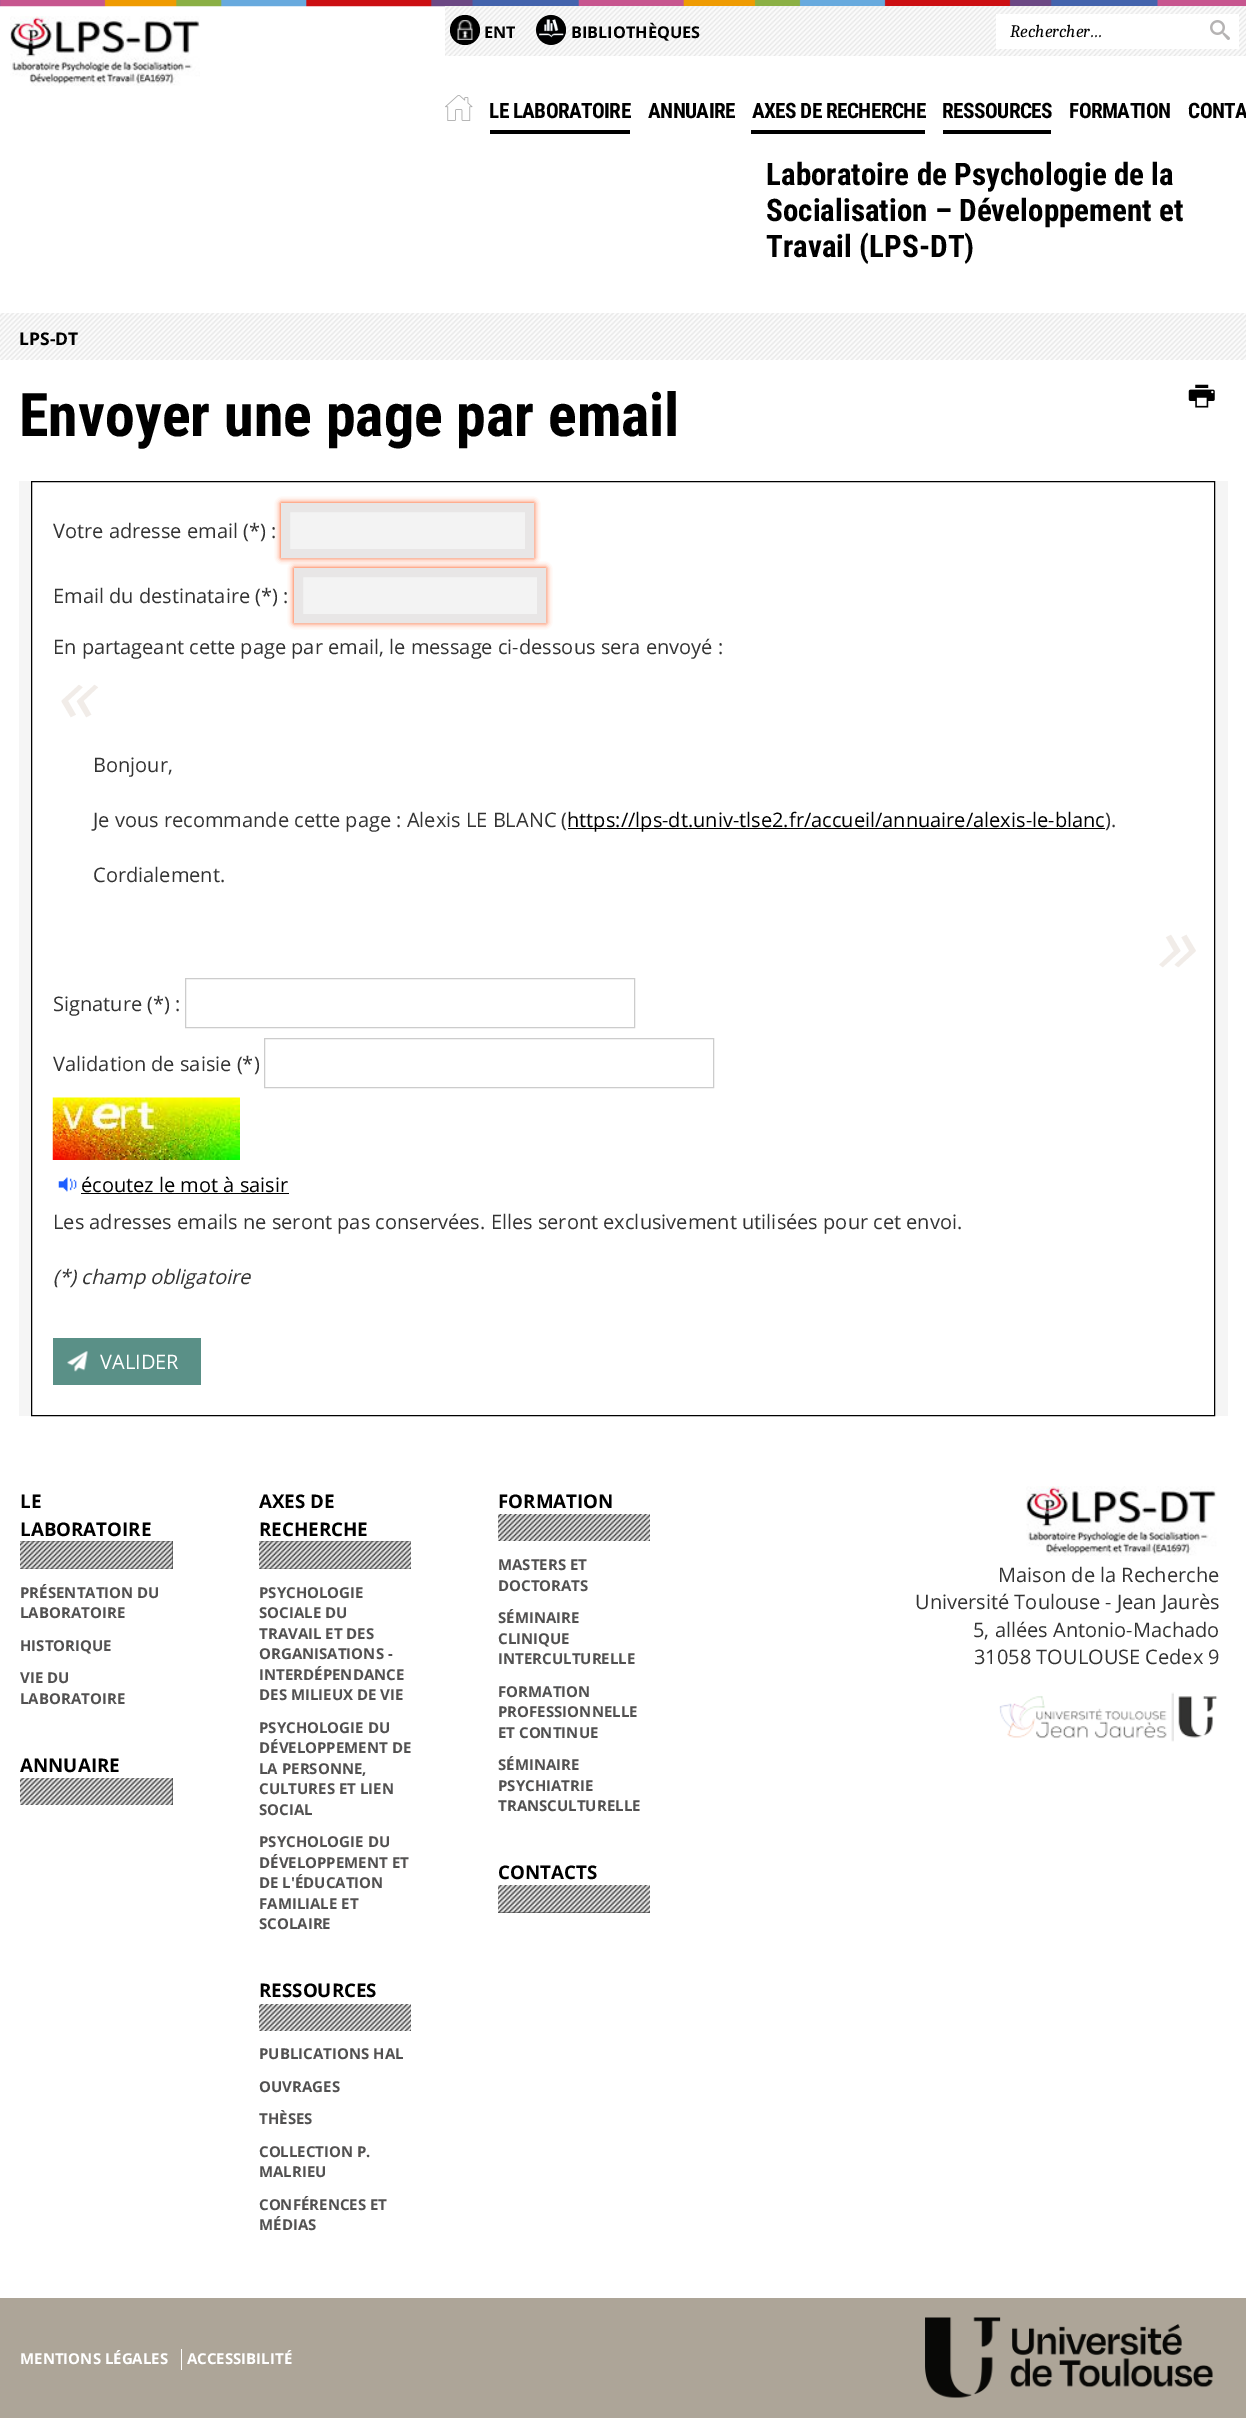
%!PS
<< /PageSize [1246 2435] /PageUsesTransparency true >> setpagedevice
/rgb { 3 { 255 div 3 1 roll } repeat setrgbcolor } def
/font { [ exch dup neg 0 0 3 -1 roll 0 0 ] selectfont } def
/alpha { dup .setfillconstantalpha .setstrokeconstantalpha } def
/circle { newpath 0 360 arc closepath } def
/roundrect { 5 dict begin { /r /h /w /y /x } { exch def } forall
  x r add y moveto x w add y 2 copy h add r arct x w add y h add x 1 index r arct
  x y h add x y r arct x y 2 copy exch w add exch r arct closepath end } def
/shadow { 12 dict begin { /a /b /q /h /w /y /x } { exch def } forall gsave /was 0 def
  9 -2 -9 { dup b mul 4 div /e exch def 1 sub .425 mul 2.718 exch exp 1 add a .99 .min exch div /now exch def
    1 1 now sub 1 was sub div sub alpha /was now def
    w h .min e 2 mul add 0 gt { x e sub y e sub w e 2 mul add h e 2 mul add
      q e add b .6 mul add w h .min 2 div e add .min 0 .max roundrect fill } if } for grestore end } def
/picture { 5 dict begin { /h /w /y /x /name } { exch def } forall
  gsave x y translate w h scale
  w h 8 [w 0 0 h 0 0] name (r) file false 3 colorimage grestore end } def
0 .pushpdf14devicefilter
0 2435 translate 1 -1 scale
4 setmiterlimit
255 255 255 rgb
0 0 1246 2435 rectfill
(img/1.rgb) 0 0 1246 7 picture
(img/2.rgb) 10 16 190 70 picture
229 229 229 rgb
445 6 801 50 rectfill
(img/3.rgb) 445 6 801 50 picture
0 0 0 rgb
465 30 15 circle fill
(img/4.rgb) 457 20 16 20 picture
551 30 15 circle fill
(img/5.rgb) 536 15 30 30 picture
255 255 255 rgb
996 14 243 35 rectfill
(img/6.rgb) 1210 20 20 20 picture
(img/7.rgb) 445 95 28 26 picture
[
  [490 130 140 4 0 0 0]
  [751 130 174 4 0 0 0]
  [943 130 108 4 0 0 0]
  [0 313 1246 47 229 229 229]
] { aload pop rgb rectfill } forall
(img/8.rgb) 0 313 1246 47 picture
(img/9.rgb) 1188 384 27 24 picture
245 245 245 rgb
19 481 1209 935 rectfill
255 255 255 rgb
31.5 481.5 moveto 1214.5 481.5 lineto 1214.5 1415.5 lineto 31.5 1415.5 lineto closepath gsave fill grestore
0 0 0 rgb
stroke
255 69 0 rgb
281 503 253 55 0 3 1 shadow
243 243 243 rgb
285.5 507.5 moveto 529.5 507.5 lineto 529.5 553.5 lineto 285.5 553.5 lineto closepath gsave fill grestore
232 230 230 rgb
9 setlinewidth
stroke
255 69 0 rgb
294 568 252 55 0 3 1 shadow
243 243 243 rgb
298.5 572.5 moveto 541.5 572.5 lineto 541.5 618.5 lineto 298.5 618.5 lineto closepath gsave fill grestore
232 230 230 rgb
stroke
0 0 0 rgb
568 828 537 1 rectfill
204 204 204 rgb
1 setlinewidth
185.5 978.5 449 49 rectstroke
264.5 1038.5 449 49 rectstroke
(img/10.rgb) 52 1097 188 63 picture
(img/11.rgb) 58 1177 19 15 picture
0 0 0 rgb
81 1193 208 1 rectfill
90 144 135 rgb
53 1338 148 47 rectfill
(img/12.rgb) 67 1351 21 21 picture
51 51 51 rgb
20 1541 153 28 rectfill
(img/13.rgb) 20 1541 153 28 picture
20 1778 153 27 rectfill
(img/14.rgb) 20 1778 153 27 picture
259 1541 152 28 rectfill
(img/15.rgb) 259 1541 152 28 picture
259 2004 152 27 rectfill
(img/16.rgb) 259 2004 152 27 picture
498 1514 152 27 rectfill
(img/17.rgb) 498 1514 152 27 picture
498 1885 152 28 rectfill
(img/18.rgb) 498 1885 152 28 picture
(img/19.rgb) 1026 1486 191 70 picture
(img/20.rgb) 999 1692 219 50 picture
173 165 152 rgb
0 2298 1246 120 rectfill
255 255 255 rgb
181 2349 1 21 rectfill
(img/21.rgb) 925 2317 288 81 picture
/OpenSans-Bold 16.25 font
0 0 0 rgb
484 38 moveto (ENT) show
571 38 moveto (BIBLIOTHÈQUES) show
/Caladea-Italic 17.5 font
1010 37 moveto (Rechercher…) show
/RobotoCondensed-Bold 21.25 font
489 118 moveto -0.6 0 (LE LABORATOIRE) ashow
648 118 moveto -0.6 0 (ANNUAIRE) ashow
752 118 moveto -0.6 0 (AXES DE RECHERCHE) ashow
942 118 moveto -0.6 0 (RESSOURCES) ashow
1069 118 moveto -0.6 0 (FORMATION) ashow
1188 118 moveto -0.6 0 (CONTA) ashow
/RobotoCondensed-Bold 31.1 font
[
  [(Laboratoire de Psychologie de la) 766 185]
  [(Socialisation – Développement et) 766 221]
  [(Travail \(LPS-DT\)) 766 257]
] { aload pop moveto show } forall
/OpenSans-Bold 17.5 font
19 345 moveto (LPS-DT) show
/RobotoCondensed-Bold 60 font
19 436 moveto (Envoyer une page par email) show
/OpenSans-Regular 20 font
51 51 51 rgb
[
  [(Votre adresse email \(*\) :) 53 538]
  [(Email du destinataire \(*\) :) 53 603]
  [(En partageant cette page par email, le message ci-dessous sera envoyé :) 53 654]
] { aload pop moveto show } forall
/OpenSans-Italic 80 font
241 236 232 rgb
53 722 moveto («) show
/OpenSans-Regular 20 font
51 51 51 rgb
93 772 moveto (Bonjour,) show
93 827 moveto (Je vous recommande cette page : Alexis LE BLANC \() show
0 0 0 rgb
567 827 moveto (https://lps-dt.univ-tlse2.fr/accueil/annuaire/alexis-le-blanc) show
51 51 51 rgb
1105 827 moveto (\).) show
93 882 moveto (Cordialement.) show
/OpenSans-Italic 80 font
241 236 232 rgb
1154 972 moveto (») show
/OpenSans-Regular 20 font
51 51 51 rgb
53 1011 moveto (Signature \(*\) :) show
53 1071 moveto (Validation de saisie \(*\)) show
0 0 0 rgb
81 1192 moveto (écoutez le mot à saisir) show
51 51 51 rgb
53 1229 moveto (Les adresses emails ne seront pas conservées. Elles seront exclusivement utilisées pour cet envoi.) show
/OpenSans-Italic 20 font
53 1284 moveto (\(*\) champ obligatoire) show
/OpenSans-Regular 20 font
255 255 255 rgb
100 1369 moveto (VALIDER) show
/OpenSans-Bold 18.75 font
0 0 0 rgb
20 1508 moveto (LE) show
20 1536 moveto (LABORATOIRE) show
/OpenSans-Bold 15 font
82 81 81 rgb
[
  [(PRÉSENTATION DU) 20 1598]
  [(LABORATOIRE) 20 1618]
  [(HISTORIQUE) 20 1651]
  [(VIE DU) 20 1683]
  [(LABORATOIRE) 20 1704]
] { aload pop moveto show } forall
/OpenSans-Bold 18.75 font
0 0 0 rgb
[
  [(ANNUAIRE) 20 1772]
  [(AXES DE) 259 1508]
  [(RECHERCHE) 259 1536]
] { aload pop moveto show } forall
/OpenSans-Bold 15 font
82 81 81 rgb
[
  [(PSYCHOLOGIE) 259 1598]
  [(SOCIALE DU) 259 1618]
  [(TRAVAIL ET DES) 259 1639]
  [(ORGANISATIONS -) 259 1659]
  [(INTERDÉPENDANCE) 259 1680]
  [(DES MILIEUX DE VIE) 259 1700]
  [(PSYCHOLOGIE DU) 259 1733]
  [(DÉVELOPPEMENT DE) 259 1753]
  [(LA PERSONNE,) 259 1774]
  [(CULTURES ET LIEN) 259 1794]
  [(SOCIAL) 259 1815]
  [(PSYCHOLOGIE DU) 259 1847]
  [(DÉVELOPPEMENT ET) 259 1868]
  [(DE L'ÉDUCATION) 259 1888]
  [(FAMILIALE ET) 259 1909]
  [(SCOLAIRE) 259 1929]
] { aload pop moveto show } forall
/OpenSans-Bold 18.75 font
0 0 0 rgb
259 1997 moveto (RESSOURCES) show
/OpenSans-Bold 15 font
82 81 81 rgb
[
  [(PUBLICATIONS HAL) 259 2059]
  [(OUVRAGES) 259 2092]
  [(THÈSES) 259 2124]
  [(COLLECTION P.) 259 2157]
  [(MALRIEU) 259 2177]
  [(CONFÉRENCES ET) 259 2210]
  [(MÉDIAS) 259 2230]
] { aload pop moveto show } forall
/OpenSans-Bold 18.75 font
0 0 0 rgb
498 1508 moveto (FORMATION) show
/OpenSans-Bold 15 font
82 81 81 rgb
[
  [(MASTERS ET) 498 1570]
  [(DOCTORATS) 498 1591]
  [(SÉMINAIRE) 498 1623]
  [(CLINIQUE) 498 1644]
  [(INTERCULTURELLE) 498 1664]
  [(FORMATION) 498 1697]
  [(PROFESSIONNELLE) 498 1717]
  [(ET CONTINUE) 498 1738]
  [(SÉMINAIRE) 498 1770]
  [(PSYCHIATRIE) 498 1791]
  [(TRANSCULTURELLE) 498 1811]
] { aload pop moveto show } forall
/OpenSans-Bold 18.75 font
0 0 0 rgb
498 1879 moveto (CONTACTS) show
/OpenSans-Regular 20 font
51 51 51 rgb
[
  [(Maison de la Recherche) 998 1582]
  [(Université Toulouse - Jean Jaurès) 915 1609]
  [(5, allées Antonio-Machado) 973 1637]
  [(31058 TOULOUSE Cedex 9) 974 1664]
] { aload pop moveto show } forall
/OpenSans-Bold 15 font
255 255 255 rgb
20 2364 moveto (MENTIONS LÉGALES) show
187 2364 moveto (ACCESSIBILITÉ) show
.poppdf14devicefilter showpage
